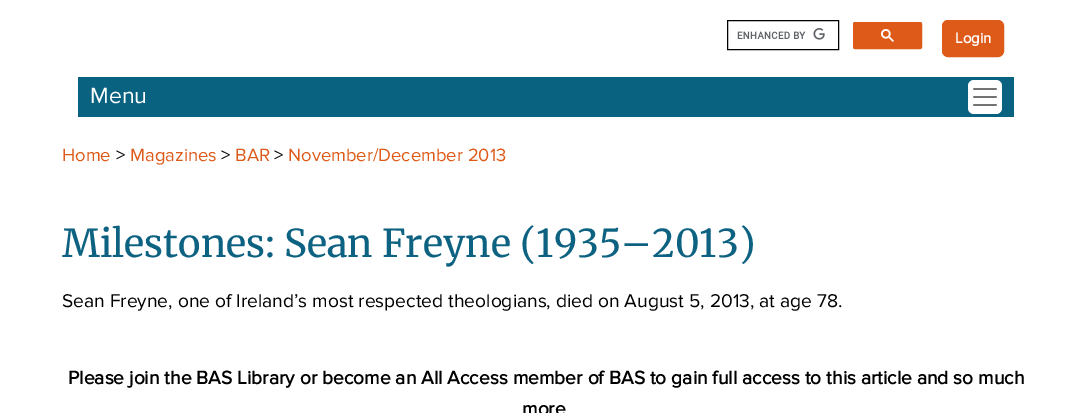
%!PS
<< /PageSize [1092 413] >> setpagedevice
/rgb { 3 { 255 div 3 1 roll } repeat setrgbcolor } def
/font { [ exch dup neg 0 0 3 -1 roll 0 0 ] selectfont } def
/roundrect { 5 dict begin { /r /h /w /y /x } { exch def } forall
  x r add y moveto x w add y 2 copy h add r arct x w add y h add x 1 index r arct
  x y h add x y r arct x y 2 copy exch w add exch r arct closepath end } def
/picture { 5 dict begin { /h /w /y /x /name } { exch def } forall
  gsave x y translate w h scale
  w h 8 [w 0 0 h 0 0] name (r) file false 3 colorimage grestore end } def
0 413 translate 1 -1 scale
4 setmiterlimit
255 255 255 rgb
0 0 1092 413 rectfill
0 0 0 rgb
727.5 20.5 111 29 rectstroke
(img/1.rgb) 737 28 88 12 picture
221 90 24 rgb
853.5 22.5 68 26 1.5 roundrect gsave fill grestore
stroke
(img/2.rgb) 881 29 13 13 picture
942.5 20.5 61 36 5.5 roundrect gsave fill grestore
stroke
9 98 128 rgb
78 77 936 40 rectfill
255 255 255 rgb
968 80 34 34 6 roundrect fill
(img/3.rgb) 973 88 24 18 picture
/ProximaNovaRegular-Bold 15 font
955 43 moveto (Login) show
/ProximaNovaRegular-Regular 23 font
90 103 moveto (Menu) show
/ProximaNovaRegular-Regular 18.4 font
221 90 24 rgb
62 161 moveto (Home) show
0 0 0 rgb
116 161 moveto (>) show
221 90 24 rgb
130 161 moveto (Magazines) show
0 0 0 rgb
221 161 moveto (>) show
221 90 24 rgb
235 161 moveto (BAR) show
0 0 0 rgb
274 161 moveto (>) show
221 90 24 rgb
288 161 moveto (November/December 2013) show
/Merriweather-Regular 38.4 font
13 98 129 rgb
62 257 moveto (Milestones: Sean Freyne \(1935–2013\)) show
/ProximaNovaRegular-Regular 19.2 font
0 0 0 rgb
62 307 moveto (Sean Freyne, one of Ireland’s most respected theologians, died on August 5, 2013, at age 78.) show
/ProximaNovaRegular-Bold 19.2 font
68 384 moveto (Please join the BAS Library or become an All Access member of BAS to gain full access to this article and so much) show
522 415 moveto (more) show
showpage
